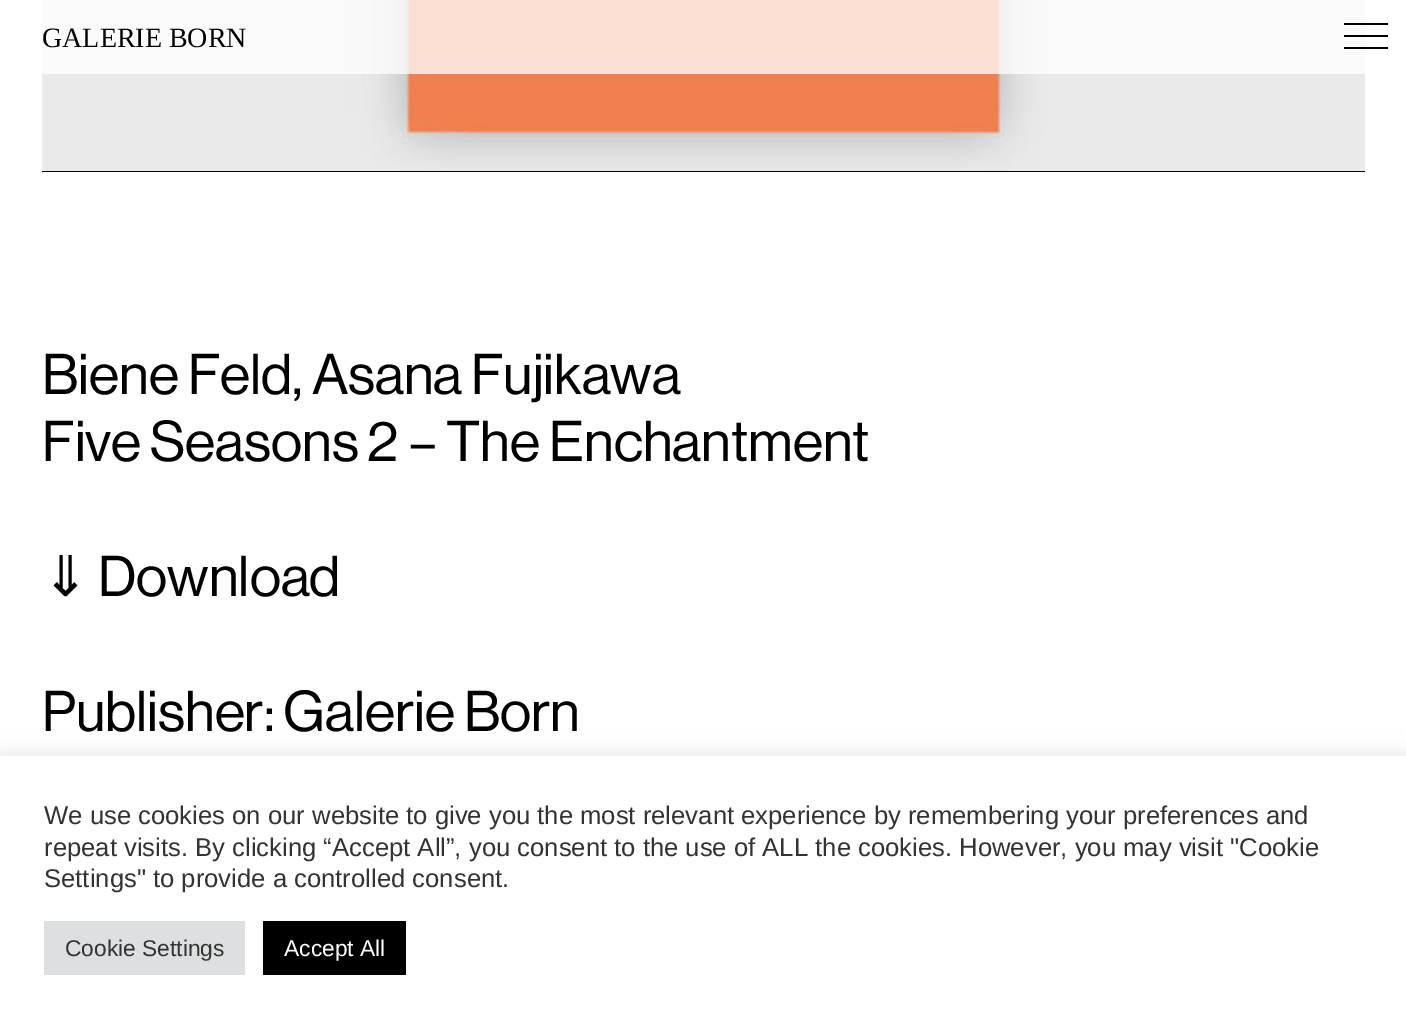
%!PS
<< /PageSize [1406 1026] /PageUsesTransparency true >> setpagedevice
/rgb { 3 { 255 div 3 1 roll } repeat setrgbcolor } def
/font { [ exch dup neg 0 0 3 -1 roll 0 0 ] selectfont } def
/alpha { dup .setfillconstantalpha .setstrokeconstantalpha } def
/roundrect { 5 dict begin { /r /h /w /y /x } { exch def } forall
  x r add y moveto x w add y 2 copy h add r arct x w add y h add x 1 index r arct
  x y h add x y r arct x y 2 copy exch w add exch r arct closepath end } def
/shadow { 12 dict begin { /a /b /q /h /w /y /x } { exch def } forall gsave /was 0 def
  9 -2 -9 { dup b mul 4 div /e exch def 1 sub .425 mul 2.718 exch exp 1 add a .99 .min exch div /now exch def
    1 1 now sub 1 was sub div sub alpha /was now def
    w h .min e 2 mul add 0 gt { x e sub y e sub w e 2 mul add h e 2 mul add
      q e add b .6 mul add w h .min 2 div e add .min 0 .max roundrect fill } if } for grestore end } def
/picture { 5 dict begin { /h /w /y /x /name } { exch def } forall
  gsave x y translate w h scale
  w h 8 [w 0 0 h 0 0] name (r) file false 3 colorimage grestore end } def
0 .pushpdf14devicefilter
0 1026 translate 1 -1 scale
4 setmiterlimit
255 255 255 rgb
0 0 1406 1026 rectfill
(img/1.rgb) 42 0 1323 171 picture
0.75 alpha
[
  [42 0 1323 74 255 255 255]
] { aload pop rgb rectfill } forall
1 alpha
[
  [1344 35 44 2 0 0 0]
  [1344 23 44 2 0 0 0]
  [1344 47 44 2 0 0 0]
  [42 171 1323 1 0 0 0]
] { aload pop rgb rectfill } forall
172 171 171 rgb
0 754 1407 272 0 9 0.3 shadow
[
  [0 756 1406 270 255 255 255]
  [44 921 201 54 222 223 224]
  [263 921 143 54 0 0 0]
] { aload pop rgb rectfill } forall
/LiberationSerif-Regular 28 font
42 47 moveto (GALERIE BORN) show
/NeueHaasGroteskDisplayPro-Regular 56.25 font
42 394 moveto (Biene Feld, Asana Fujikawa) show
42 461 moveto (Five Seasons 2 – The Enchantment) show
/DejaVuSans-Regular 56.25 font
42 596 moveto (⇓) show
/NeueHaasGroteskDisplayPro-Regular 56.25 font
98 596 moveto (Download) show
42 731 moveto (Publisher: Galerie Born) show
/LiberationSans-Regular 25.65 font
51 51 51 rgb
[
  [(We use cookies on our website to give you the most relevant experience by remembering your preferences and) 44 824]
  [(repeat visits. By clicking “Accept All”, you consent to the use of ALL the cookies. However, you may visit "Cookie) 44 856]
  [(Settings" to provide a controlled consent.) 44 887]
] { aload pop moveto show } forall
/LiberationSans-Regular 22.75 font
65 956 moveto (Cookie Settings) show
255 255 255 rgb
284 956 moveto (Accept All) show
.poppdf14devicefilter showpage
